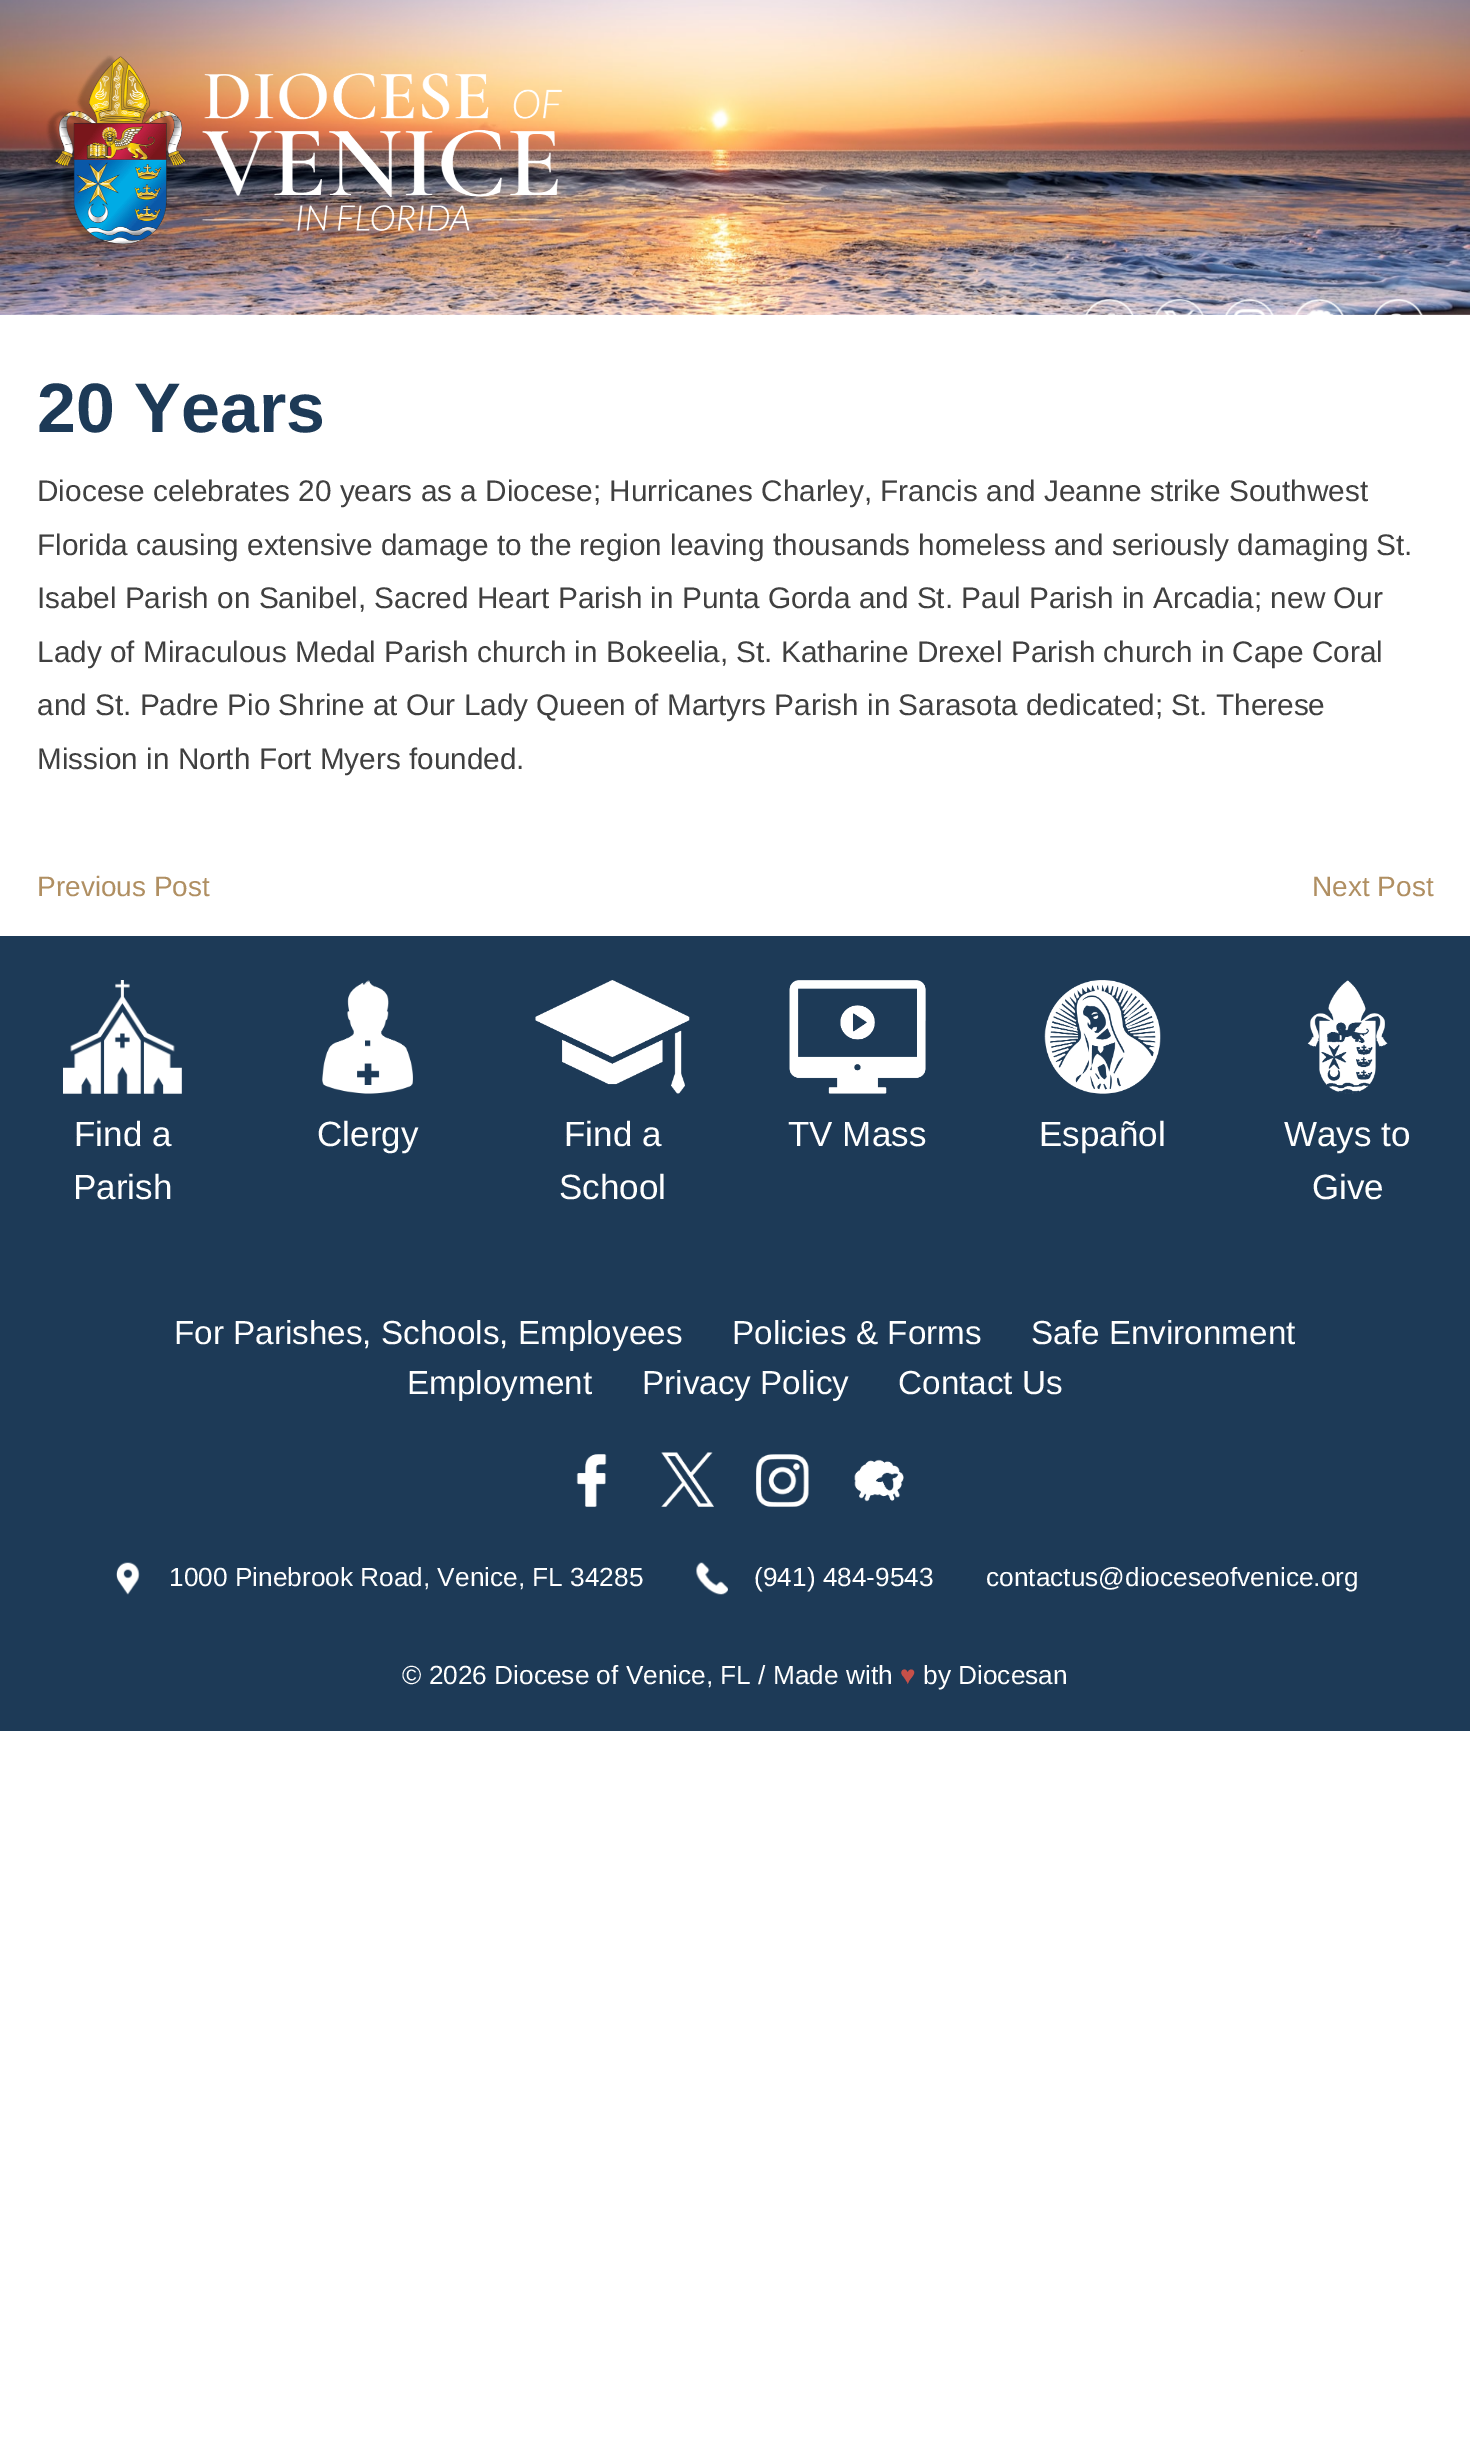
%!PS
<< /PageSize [1470 2446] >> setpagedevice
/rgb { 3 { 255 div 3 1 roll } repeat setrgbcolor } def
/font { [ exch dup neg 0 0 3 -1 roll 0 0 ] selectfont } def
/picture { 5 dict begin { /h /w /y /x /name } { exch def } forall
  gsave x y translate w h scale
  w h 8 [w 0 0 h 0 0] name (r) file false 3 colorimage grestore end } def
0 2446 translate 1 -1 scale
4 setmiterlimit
255 255 255 rgb
0 0 1470 2446 rectfill
(img/1.rgb) 0 0 1470 315 picture
(img/2.rgb) 44 55 518 191 picture
(img/3.rgb) 1085 299 49 16 picture
(img/4.rgb) 1155 299 50 16 picture
(img/5.rgb) 1225 299 49 16 picture
(img/6.rgb) 1295 299 49 16 picture
(img/7.rgb) 1373 299 50 16 picture
29 58 87 rgb
0 936 1470 321 rectfill
(img/8.rgb) 63 980 119 114 picture
(img/9.rgb) 322 980 91 114 picture
(img/10.rgb) 535 980 155 114 picture
(img/11.rgb) 789 980 137 114 picture
(img/12.rgb) 1044 980 117 114 picture
(img/13.rgb) 1307 980 81 114 picture
0 1257 1470 474 rectfill
(img/14.rgb) 576 1454 31 53 picture
(img/15.rgb) 661 1452 53 55 picture
(img/16.rgb) 756 1454 53 53 picture
(img/17.rgb) 854 1459 50 43 picture
(img/18.rgb) 116 1562 24 33 picture
(img/19.rgb) 696 1562 32 33 picture
/LiberationSans-Bold 70 font
37 432 moveto (20 Years) show
/LiberationSans-Regular 29.75 font
64 64 64 rgb
[
  [(Diocese celebrates 20 years as a Diocese; Hurricanes Charley, Francis and Jeanne strike Southwest) 37 501]
  [(Florida causing extensive damage to the region leaving thousands homeless and seriously damaging St.) 37 555]
  [(Isabel Parish on Sanibel, Sacred Heart Parish in Punta Gorda and St. Paul Parish in Arcadia; new Our) 37 608]
  [(Lady of Miraculous Medal Parish church in Bokeelia, St. Katharine Drexel Parish church in Cape Coral) 37 662]
  [(and St. Padre Pio Shrine at Our Lady Queen of Martyrs Parish in Sarasota dedicated; St. Therese) 37 715]
  [(Mission in North Fort Myers founded.) 37 769]
] { aload pop moveto show } forall
/LiberationSans-Regular 28 font
176 143 98 rgb
37 896 moveto (Previous Post) show
1312 896 moveto (Next Post) show
/LiberationSans-Regular 35 font
255 255 255 rgb
[
  [(Find a) 74 1146]
  [(Parish) 73 1199]
  [(Clergy) 317 1146]
  [(Find a) 564 1146]
  [(School) 559 1199]
  [(TV Mass) 788 1146]
  [(Español) 1039 1146]
  [(Ways to) 1284 1146]
  [(Give) 1312 1199]
] { aload pop moveto show } forall
/LiberationSans-Regular 33.25 font
[
  [(For Parishes, Schools, Employees) 174 1344]
  [(Policies & Forms) 732 1344]
  [(Safe Environment) 1031 1344]
  [(Employment) 407 1394]
  [(Privacy Policy) 642 1394]
  [(Contact Us) 898 1394]
] { aload pop moveto show } forall
/LiberationSans-Regular 26.25 font
[
  [(1000 Pinebrook Road, Venice, FL 34285) 169 1586]
  [(\(941\) 484-9543) 754 1586]
  [(contactus@dioceseofvenice.org) 986 1586]
  [(© 2026 Diocese of Venice, FL / Made with) 402 1684]
] { aload pop moveto show } forall
198 80 73 rgb
900 1684 moveto (♥) show
255 255 255 rgb
923 1684 moveto (by Diocesan) show
showpage
